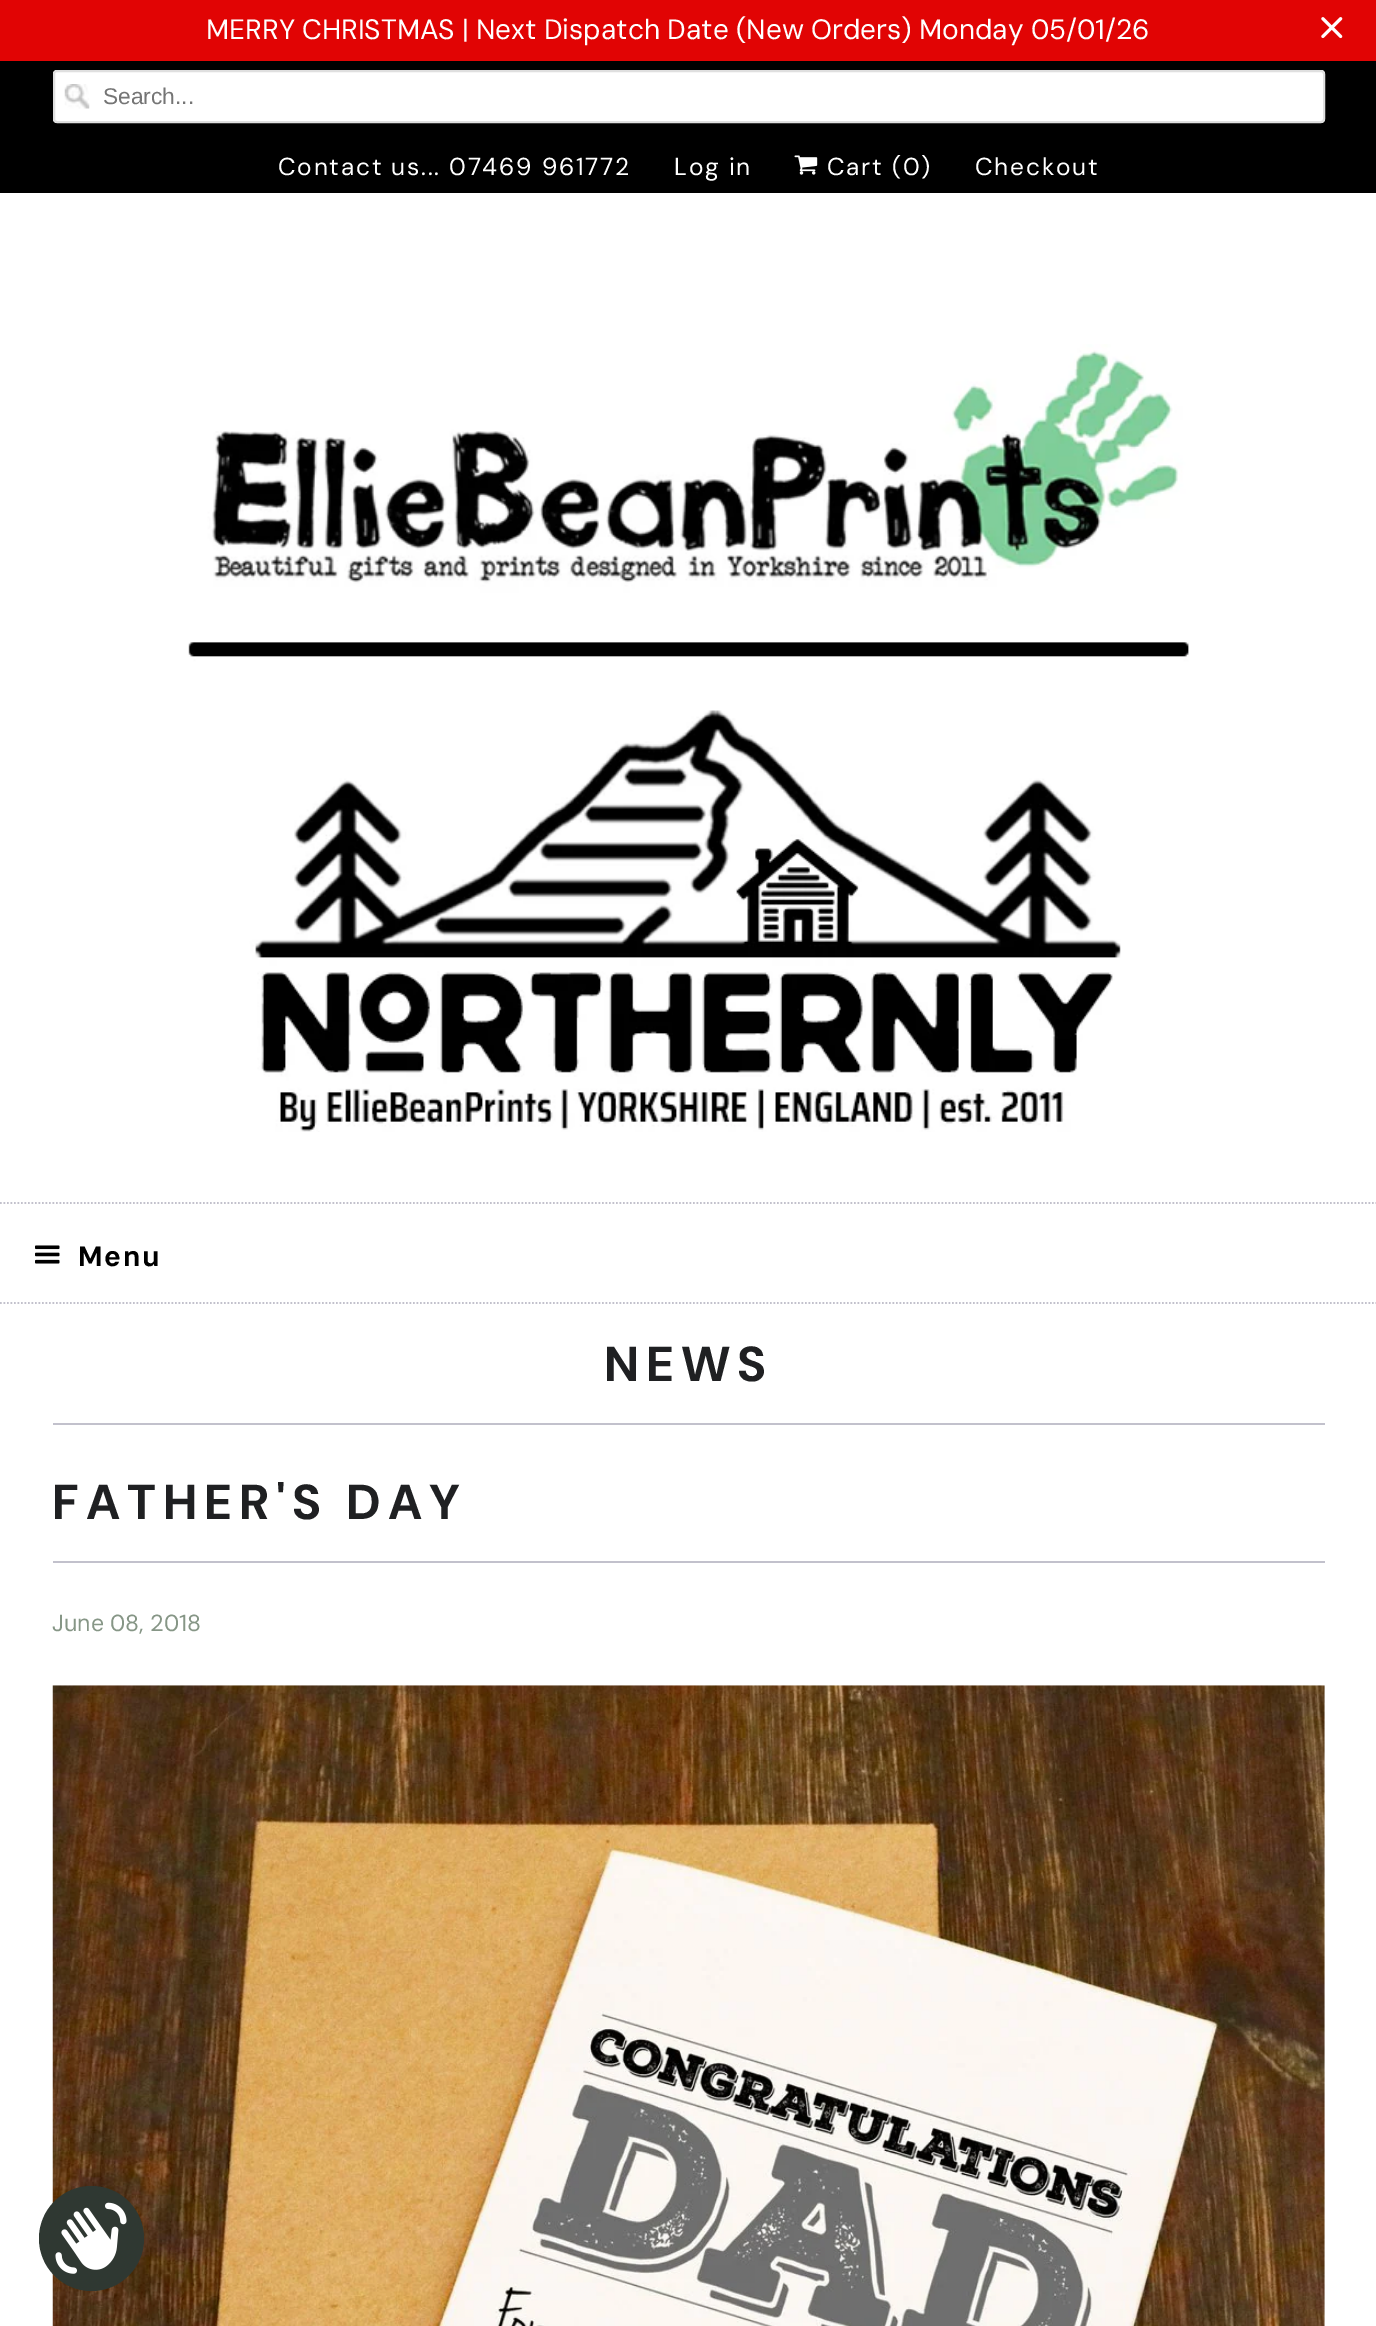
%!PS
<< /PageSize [1376 2326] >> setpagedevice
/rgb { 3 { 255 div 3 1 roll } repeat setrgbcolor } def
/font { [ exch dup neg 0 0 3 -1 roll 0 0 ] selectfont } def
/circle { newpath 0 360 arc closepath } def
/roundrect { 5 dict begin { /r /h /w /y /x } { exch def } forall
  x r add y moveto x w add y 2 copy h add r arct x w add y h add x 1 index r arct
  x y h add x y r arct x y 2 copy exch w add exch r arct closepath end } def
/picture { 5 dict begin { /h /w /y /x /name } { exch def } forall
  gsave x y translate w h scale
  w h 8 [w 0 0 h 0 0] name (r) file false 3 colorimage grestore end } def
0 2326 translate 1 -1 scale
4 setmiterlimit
255 255 255 rgb
0 0 1376 2326 rectfill
225 4 4 rgb
0 0 1376 61 rectfill
(img/1.rgb) 1321 17 22 22 picture
0 0 0 rgb
0 61 1376 132 rectfill
255 255 255 rgb
53 70 1272 53 4 roundrect fill
(img/2.rgb) 64 84 26 25 picture
223 223 223 rgb
2 setlinewidth
54 71 1270 51 3 roundrect stroke
(img/3.rgb) 794 155 24 20 picture
(img/4.rgb) 188 344 1001 788 picture
194 193 204 rgb
1.8 setlinewidth
[1.75 1.75] 0 setdash
0 1203 moveto 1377 1203 lineto stroke
0 1303 moveto 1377 1303 lineto stroke
(img/5.rgb) 35 1245 25 19 picture
53 1423 1272 2 rectfill
53 1561 1272 2 rectfill
(img/6.rgb) 52 1685 1273 641 picture
47 56 50 rgb
91.5 2238.5 52.5 circle fill
(img/7.rgb) 55 2202 72 72 picture
/DMSans-Regular 28 font
255 255 255 rgb
206 39 moveto -0.25 0 32 (MERRY CHRISTMAS | Next Dispatch Date \(New Orders\) Monday 05/01/26) widthshow
/LiberationSans-Regular 22.75 font
117 117 117 rgb
103 104 moveto (Search...) show
/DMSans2-Regular 24.5 font
255 255 255 rgb
278 175 moveto 1.75 0 (Contact us... 07469 961772) ashow
674 175 moveto 1.75 0 (Log in) ashow
827 175 moveto 1.75 0 (Cart \(0\)) ashow
975 175 moveto 1.75 0 (Checkout) ashow
/DMSans-Bold 28 font
0 0 0 rgb
78 1266 moveto 1.75 0 (Menu) ashow
/DMSans2-Bold 49 font
31 32 34 rgb
604 1381 moveto 7 0 (NEWS) ashow
52 1519 moveto 7 0 (FATHER'S DAY) ashow
/DMSans-Regular 23.25 font
134 150 134 rgb
52 1631 moveto (June 08, 2018) show
showpage
